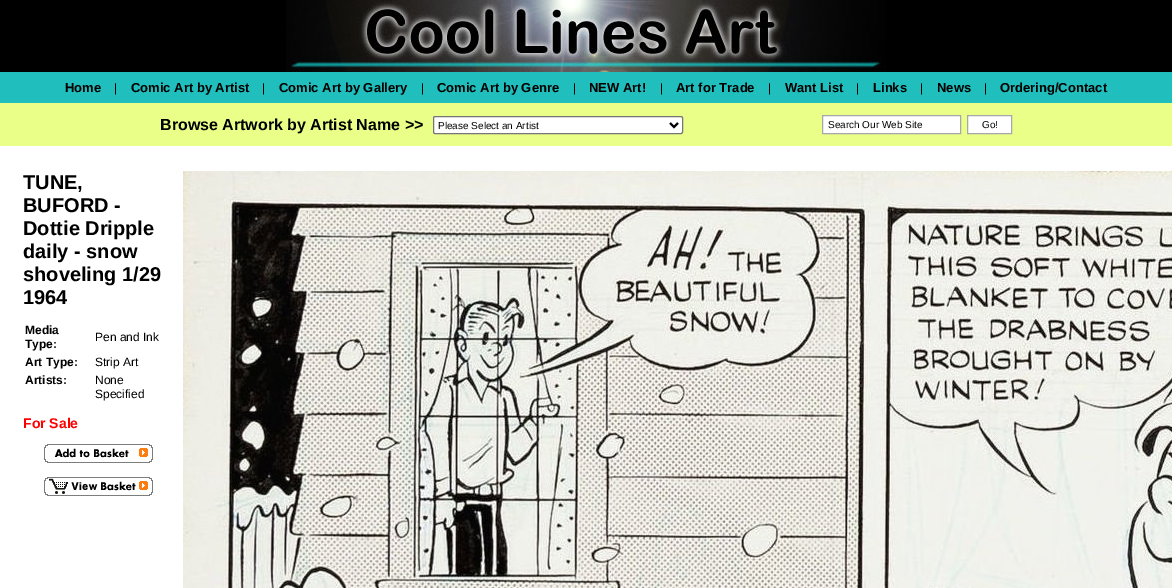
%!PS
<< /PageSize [1172 588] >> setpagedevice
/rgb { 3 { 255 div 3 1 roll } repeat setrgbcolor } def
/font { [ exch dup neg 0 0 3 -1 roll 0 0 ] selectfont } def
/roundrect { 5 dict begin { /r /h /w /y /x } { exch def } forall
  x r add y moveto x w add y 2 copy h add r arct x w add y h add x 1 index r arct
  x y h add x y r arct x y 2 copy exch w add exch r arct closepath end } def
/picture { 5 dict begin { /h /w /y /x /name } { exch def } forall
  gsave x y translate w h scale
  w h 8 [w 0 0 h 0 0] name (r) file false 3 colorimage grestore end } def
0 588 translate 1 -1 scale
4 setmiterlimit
255 255 255 rgb
0 0 1172 588 rectfill
0 0 0 rgb
0 0 1172 72 rectfill
(img/1.rgb) 286 0 600 72 picture
32 190 188 rgb
0 72 1172 31 rectfill
234 255 136 rgb
0 103 1172 43 rectfill
255 255 255 rgb
433.5 116.5 249 17 1.5 roundrect gsave fill grestore
118 118 118 rgb
stroke
0 0 0 rgb
2 setlinewidth
670 123 moveto 674 127 lineto 678 123 lineto stroke
255 255 255 rgb
822.5 115.5 moveto 960.5 115.5 lineto 960.5 133.5 lineto 822.5 133.5 lineto closepath gsave fill grestore
167 166 170 rgb
1 setlinewidth
stroke
255 255 255 rgb
967.5 115.5 moveto 1011.5 115.5 lineto 1011.5 133.5 lineto 967.5 133.5 lineto closepath gsave fill grestore
167 166 170 rgb
stroke
(img/2.rgb) 44 444 109 19 picture
(img/3.rgb) 44 477 109 19 picture
(img/4.rgb) 183 171 989 417 picture
/LiberationSans-Bold 13 font
0 0 0 rgb
65 92 moveto (Home) show
/LiberationSans-Regular 12 font
114 92 moveto (|) show
/LiberationSans-Bold 13 font
131 92 moveto (Comic Art by Artist) show
/LiberationSans-Regular 12 font
262 92 moveto (|) show
/LiberationSans-Bold 13 font
279 92 moveto (Comic Art by Gallery) show
/LiberationSans-Regular 12 font
421 92 moveto (|) show
/LiberationSans-Bold 13 font
437 92 moveto (Comic Art by Genre) show
/LiberationSans-Regular 12 font
573 92 moveto (|) show
/LiberationSans-Bold 13 font
589 92 moveto (NEW Art!) show
/LiberationSans-Regular 12 font
660 92 moveto (|) show
/LiberationSans-Bold 13 font
676 92 moveto (Art for Trade) show
/LiberationSans-Regular 12 font
768 92 moveto (|) show
/LiberationSans-Bold 13 font
785 92 moveto (Want List) show
/LiberationSans-Regular 12 font
856 92 moveto (|) show
/LiberationSans-Bold 13 font
873 92 moveto (Links) show
/LiberationSans-Regular 12 font
920 92 moveto (|) show
/LiberationSans-Bold 13 font
937 92 moveto (News) show
/LiberationSans-Regular 12 font
984 92 moveto (|) show
/LiberationSans-Bold 13 font
1000 92 moveto (Ordering/Contact) show
/LiberationSans-Bold 16 font
160 130 moveto (Browse Artwork by Artist Name >>) show
/LiberationSans-Regular 10 font
[
  [(Please Select an Artist) 438 129]
  [(Search Our Web Site) 828 128]
  [(Go!) 982 128]
] { aload pop moveto show } forall
/LiberationSans-Bold 20 font
[
  [(TUNE,) 23 189]
  [(BUFORD -) 23 212]
  [(Dottie Dripple) 23 235]
  [(daily - snow) 23 258]
  [(shoveling 1/29) 23 281]
  [(1964) 23 304]
] { aload pop moveto show } forall
/LiberationSans-Bold 12 font
25 334 moveto (Media) show
25 348 moveto (Type:) show
/LiberationSans-Regular 12 font
95 341 moveto (Pen and Ink) show
/LiberationSans-Bold 12 font
25 366 moveto (Art Type:) show
/LiberationSans-Regular 12 font
95 366 moveto (Strip Art) show
/LiberationSans-Bold 12 font
25 384 moveto (Artists:) show
/LiberationSans-Regular 12 font
95 384 moveto (None) show
95 398 moveto (Specified) show
/LiberationSans-Bold 14 font
255 0 0 rgb
23 428 moveto (For Sale) show
showpage
